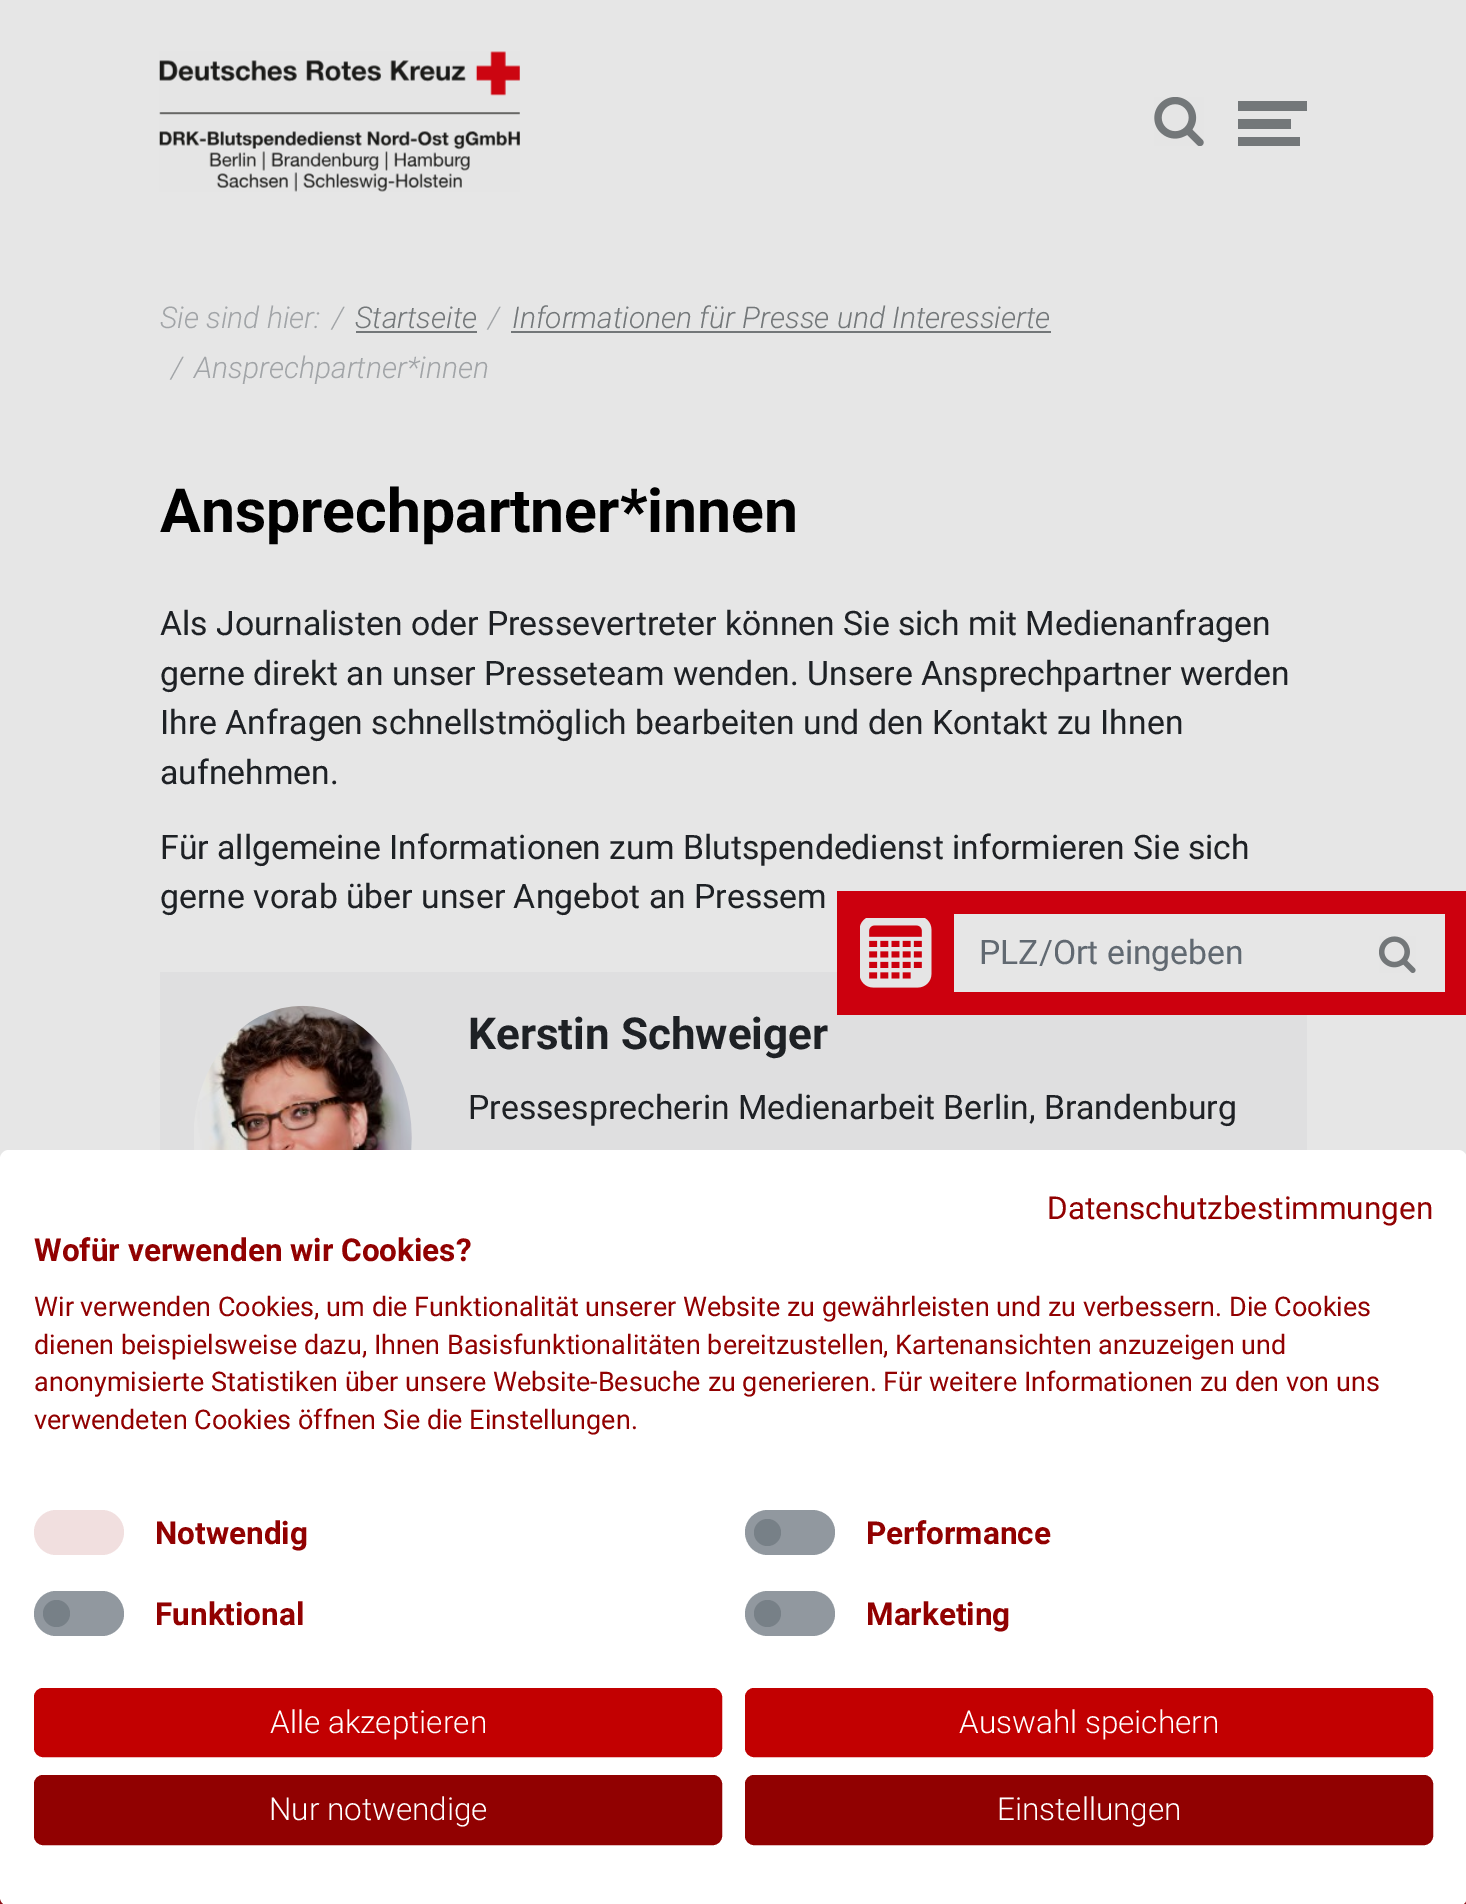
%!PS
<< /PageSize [1466 1904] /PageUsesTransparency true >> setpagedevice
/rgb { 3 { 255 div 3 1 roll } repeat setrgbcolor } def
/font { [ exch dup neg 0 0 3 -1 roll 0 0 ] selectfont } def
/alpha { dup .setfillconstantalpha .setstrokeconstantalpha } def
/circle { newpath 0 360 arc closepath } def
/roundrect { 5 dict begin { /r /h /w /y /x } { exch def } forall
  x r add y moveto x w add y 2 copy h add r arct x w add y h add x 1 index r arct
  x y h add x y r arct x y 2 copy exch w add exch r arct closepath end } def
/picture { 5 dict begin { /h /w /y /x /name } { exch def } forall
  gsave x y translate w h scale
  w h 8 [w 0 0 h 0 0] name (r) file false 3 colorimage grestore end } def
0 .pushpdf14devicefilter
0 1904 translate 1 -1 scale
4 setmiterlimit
230 230 230 rgb
0 0 1466 1904 rectfill
(img/1.rgb) 159 51 361 141 picture
(img/2.rgb) 1154 97 50 49 picture
[
  [1238 101 69 10 115 119 121]
  [1238 119 53 10 115 119 121]
  [1238 137 62 9 115 119 121]
  [356 331 121 2 115 119 121]
  [511 331 540 2 115 119 121]
  [160 972 1147 178 223 223 224]
] { aload pop rgb rectfill } forall
(img/3.rgb) 194 1005 218 145 picture
204 0 14 rgb
837 891 629 124 rectfill
(img/4.rgb) 860 918 72 70 picture
230 230 230 rgb
954 914 491 78 rectfill
(img/5.rgb) 1379 936 37 37 picture
141 16 22 rgb
0 1897 1466 7 rectfill
255 255 255 rgb
0 1150 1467 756 9 roundrect fill
241 223 223 rgb
56 1510 moveto 102 1510 lineto 114 1510 124 1520 124 1532 curveto 124 1545 114 1555 102 1555 curveto 56 1555 lineto 44 1555 34 1545 34 1532 curveto 34 1520 44 1510 56 1510 curveto closepath fill
233 236 239 rgb
745 1510 90 45 22.5 roundrect fill
146 153 159 rgb
767.5 1532.5 13.5 circle fill
0.7 alpha
108 117 125 rgb
768 1510 moveto 812 1510 lineto 825 1510 835 1520 835 1532 curveto 835 1545 825 1555 812 1555 curveto 768 1555 lineto 755 1555 745 1545 745 1532 curveto 745 1520 755 1510 768 1510 curveto closepath fill
1 alpha
233 236 239 rgb
34 1591 90 45 22.5 roundrect fill
146 153 159 rgb
56.5 1613.5 13.5 circle fill
0.7 alpha
108 117 125 rgb
56 1591 moveto 102 1591 lineto 114 1591 124 1601 124 1614 curveto 124 1626 114 1636 102 1636 curveto 56 1636 lineto 44 1636 34 1626 34 1614 curveto 34 1601 44 1591 56 1591 curveto closepath fill
1 alpha
233 236 239 rgb
745 1591 90 45 22.5 roundrect fill
146 153 159 rgb
767.5 1613.5 13.5 circle fill
0.7 alpha
108 117 125 rgb
768 1591 moveto 812 1591 lineto 825 1591 835 1601 835 1614 curveto 835 1626 825 1636 812 1636 curveto 768 1636 lineto 755 1636 745 1626 745 1614 curveto 745 1601 755 1591 768 1591 curveto closepath fill
1 alpha
194 0 1 rgb
35 1689 686 67 8 roundrect gsave fill grestore
2 setlinewidth
stroke
746 1689 686 67 8 roundrect gsave fill grestore
stroke
145 1 1 rgb
35 1776 686 68 8 roundrect gsave fill grestore
stroke
746 1776 686 68 8 roundrect gsave fill grestore
stroke
/Roboto-LightItalic 30 font
161 164 167 rgb
160 328 moveto (Sie sind hier:) show
332 328 moveto (/) show
115 119 121 rgb
355 328 moveto (Startseite) show
161 164 167 rgb
488 328 moveto (/) show
115 119 121 rgb
512 328 moveto (Informationen für Presse und Interessierte) show
161 164 167 rgb
171 378 moveto (/) show
194 378 moveto (Ansprechpartner*innen) show
/Roboto-Bold 60.75 font
0 0 0 rgb
160 532 moveto (Ansprechpartner*innen) show
/Roboto-Regular 33.75 font
30 33 37 rgb
[
  [(Als Journalisten oder Pressevertreter können Sie sich mit Medienanfragen) 160 635]
  [(gerne direkt an unser Presseteam wenden. Unsere Ansprechpartner werden) 160 685]
  [(Ihre Anfragen schnellstmöglich bearbeiten und den Kontakt zu Ihnen) 160 734]
  [(aufnehmen.) 160 784]
  [(Für allgemeine Informationen zum Blutspendedienst informieren Sie sich) 160 859]
  [(gerne vorab über unser Angebot an Pressem) 160 908]
] { aload pop moveto show } forall
/Roboto-Bold 44 font
468 1049 moveto (Kerstin Schweiger) show
/Roboto-Regular 33.75 font
468 1119 moveto (Pressesprecherin Medienarbeit Berlin, Brandenburg) show
97 105 113 rgb
979 964 moveto (PLZ/Ort eingeben) show
/Roboto-Regular 31.5 font
145 1 1 rgb
1047 1219 moveto (Datenschutzbestimmungen) show
/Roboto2-Bold 31.5 font
34 1261 moveto (Wofür verwenden wir Cookies?) show
/Roboto-Regular 27 font
[
  [(Wir verwenden Cookies, um die Funktionalität unserer Website zu gewährleisten und zu verbessern. Die Cookies) 34 1316]
  [(dienen beispielsweise dazu, Ihnen Basisfunktionalitäten bereitzustellen, Kartenansichten anzuzeigen und) 34 1354]
  [(anonymisierte Statistiken über unsere Website-Besuche zu generieren. Für weitere Informationen zu den von uns) 34 1391]
  [(verwendeten Cookies öffnen Sie die Einstellungen.) 34 1429]
] { aload pop moveto show } forall
/Roboto2-Bold 31.5 font
[
  [(Notwendig) 155 1544]
  [(Performance) 866 1544]
  [(Funktional) 155 1625]
  [(Marketing) 866 1625]
] { aload pop moveto show } forall
/Roboto-Light 31.5 font
255 255 255 rgb
[
  [(Alle akzeptieren) 270 1733]
  [(Auswahl speichern) 959 1733]
  [(Nur notwendige) 269 1820]
  [(Einstellungen) 997 1820]
] { aload pop moveto show } forall
.poppdf14devicefilter showpage
